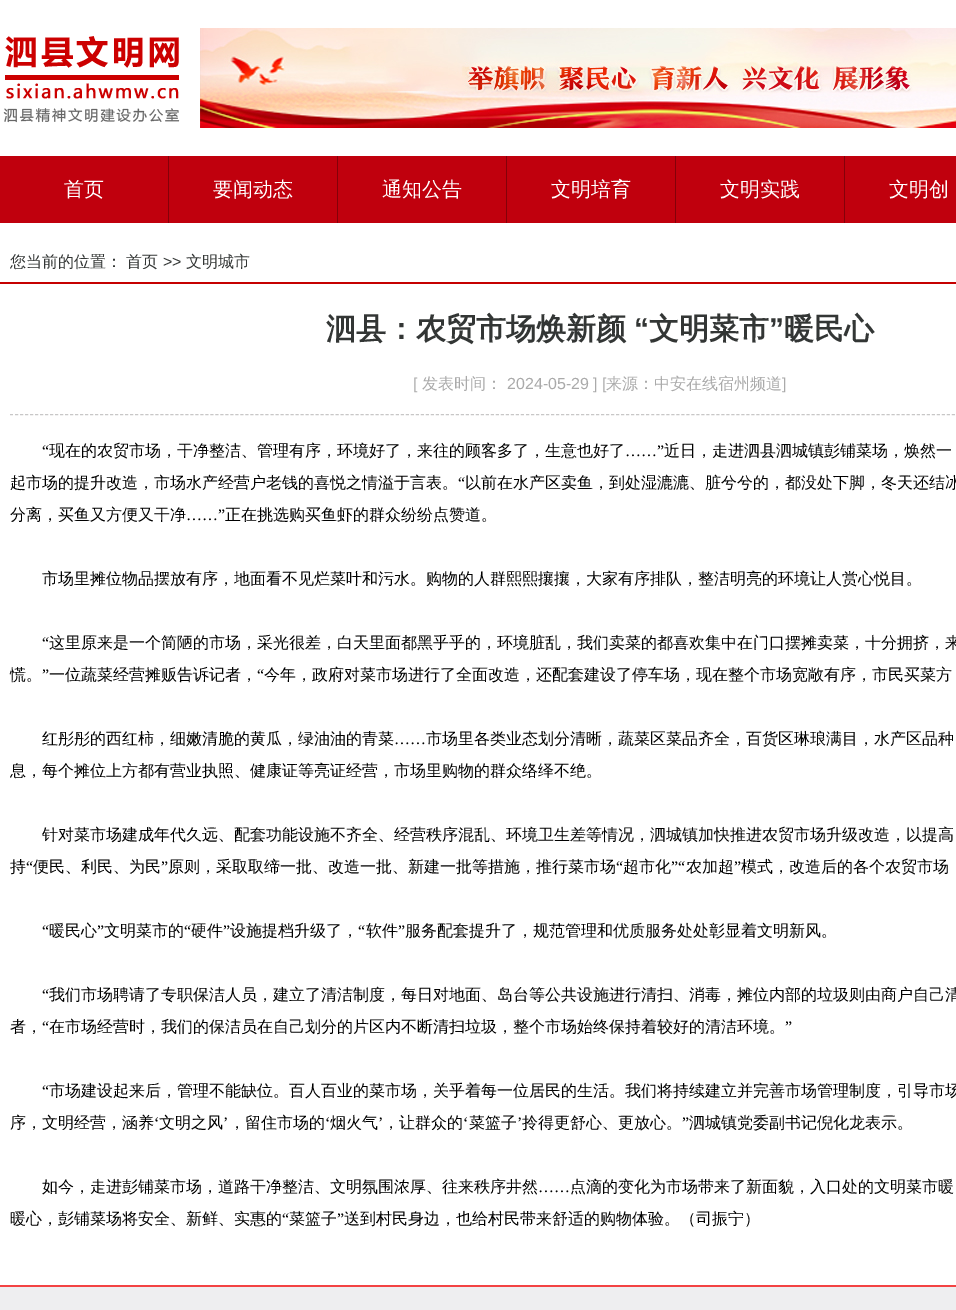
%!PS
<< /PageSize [956 1310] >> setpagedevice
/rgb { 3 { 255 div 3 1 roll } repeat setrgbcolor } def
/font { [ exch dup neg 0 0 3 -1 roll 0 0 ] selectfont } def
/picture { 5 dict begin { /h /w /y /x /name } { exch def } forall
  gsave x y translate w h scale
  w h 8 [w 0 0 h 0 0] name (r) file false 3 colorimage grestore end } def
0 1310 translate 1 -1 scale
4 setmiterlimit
255 255 255 rgb
0 0 956 1310 rectfill
(img/1.rgb) 3 36 177 87 picture
(img/2.rgb) 200 28 756 100 picture
[
  [0 156 168 67 192 0 13]
  [168 156 1 67 132 1 9]
  [169 156 168 67 192 0 13]
  [337 156 1 67 132 1 9]
  [338 156 168 67 192 0 13]
  [506 156 1 67 132 1 9]
  [507 156 168 67 192 0 13]
  [675 156 1 67 132 1 9]
  [676 156 168 67 192 0 13]
  [844 156 1 67 132 1 9]
  [845 156 111 67 192 0 13]
  [0 282 956 2 197 0 0]
] { aload pop rgb rectfill } forall
200 199 199 rgb
[3 2.01] 0 setdash
10 414.5 moveto 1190 414.5 lineto stroke
238 238 240 rgb
0 1287 956 23 rectfill
243 67 67 rgb
0 1285 956 2 rectfill
/WenQuanYiZenHei-Medium 20 font
255 255 255 rgb
[
  [(首页) 64 196]
  [(要闻动态) 213 196]
  [(通知公告) 382 196]
  [(文明培育) 551 196]
  [(文明实践) 720 196]
  [(文明创) 889 196]
] { aload pop moveto show } forall
/WenQuanYiZenHei-Medium 16 font
51 54 53 rgb
10 267 moveto (您当前的位置：) show
126 267 moveto (首页) show
/LiberationSans-Regular 16 font
163 267 moveto (>>) show
/WenQuanYiZenHei-Medium 16 font
186 267 moveto (文明城市) show
/WenQuanYiZenHei-Bold 30 font
326 339 moveto (泗县：农贸市场焕新颜) show
/LiberationSans-Bold 30 font
634 339 moveto (“) show
/WenQuanYiZenHei-Bold 30 font
649 339 moveto (文明菜市) show
/LiberationSans-Bold 30 font
769 339 moveto (”) show
/WenQuanYiZenHei-Bold 30 font
784 339 moveto (暖民心) show
/LiberationSans-Regular 16 font
170 170 170 rgb
413 389 moveto ([) show
/WenQuanYiZenHei-Medium 16 font
422 389 moveto (发表时间：) show
/LiberationSans-Regular 16 font
507 389 moveto (2024-05-29 ] [) show
/WenQuanYiZenHei-Medium 16 font
606 389 moveto (来源：中安在线宿州频道) show
/LiberationSans-Regular 16 font
782 389 moveto (]) show
/LiberationSerif-Regular 16 font
0 0 0 rgb
42 456 moveto (“) show
/WenQuanYiZenHei-Medium 16 font
49 456 moveto (现在的农贸市场，干净整洁、管理有序，环境好了，来往的顾客多了，生意也好了) show
/LiberationSerif-Regular 16 font
625 456 moveto (……”) show
/WenQuanYiZenHei-Medium 16 font
664 456 moveto (近日，走进泗县泗城镇彭铺菜场，焕然一) show
10 488 moveto (起市场的提升改造，市场水产经营户老钱的喜悦之情溢于言表。) show
/LiberationSerif-Regular 16 font
458 488 moveto (“) show
/WenQuanYiZenHei-Medium 16 font
465 488 moveto (以前在水产区卖鱼，到处湿漉漉、脏兮兮的，都没处下脚，冬天还结冰) show
10 520 moveto (分离，买鱼又方便又干净) show
/LiberationSerif-Regular 16 font
186 520 moveto (……”) show
/WenQuanYiZenHei-Medium 16 font
225 520 moveto (正在挑选购买鱼虾的群众纷纷点赞道。) show
42 584 moveto (市场里摊位物品摆放有序，地面看不见烂菜叶和污水。购物的人群熙熙攘攘，大家有序排队，整洁明亮的环境让人赏心悦目。) show
/LiberationSerif-Regular 16 font
42 648 moveto (“) show
/WenQuanYiZenHei-Medium 16 font
49 648 moveto (这里原来是一个简陋的市场，采光很差，白天里面都黑乎乎的，环境脏乱，我们卖菜的都喜欢集中在门口摆摊卖菜，十分拥挤，来) show
10 680 moveto (慌。) show
/LiberationSerif-Regular 16 font
42 680 moveto (”) show
/WenQuanYiZenHei-Medium 16 font
49 680 moveto (一位蔬菜经营摊贩告诉记者，) show
/LiberationSerif-Regular 16 font
257 680 moveto (“) show
/WenQuanYiZenHei-Medium 16 font
264 680 moveto (今年，政府对菜市场进行了全面改造，还配套建设了停车场，现在整个市场宽敞有序，市民买菜方) show
42 744 moveto (红彤彤的西红柿，细嫩清脆的黄瓜，绿油油的青菜) show
/LiberationSerif-Regular 16 font
394 744 moveto (……) show
/WenQuanYiZenHei-Medium 16 font
[
  [(市场里各类业态划分清晰，蔬菜区菜品齐全，百货区琳琅满目，水产区品种) 426 744]
  [(息，每个摊位上方都有营业执照、健康证等亮证经营，市场里购物的群众络绎不绝。) 10 776]
  [(针对菜市场建成年代久远、配套功能设施不齐全、经营秩序混乱、环境卫生差等情况，泗城镇加快推进农贸市场升级改造，以提高) 42 840]
  [(持) 10 872]
] { aload pop moveto show } forall
/LiberationSerif-Regular 16 font
26 872 moveto (“) show
/WenQuanYiZenHei-Medium 16 font
33 872 moveto (便民、利民、为民) show
/LiberationSerif-Regular 16 font
161 872 moveto (”) show
/WenQuanYiZenHei-Medium 16 font
168 872 moveto (原则，采取取缔一批、改造一批、新建一批等措施，推行菜市场) show
/LiberationSerif-Regular 16 font
616 872 moveto (“) show
/WenQuanYiZenHei-Medium 16 font
623 872 moveto (超市化) show
/LiberationSerif-Regular 16 font
671 872 moveto (”“) show
/WenQuanYiZenHei-Medium 16 font
686 872 moveto (农加超) show
/LiberationSerif-Regular 16 font
734 872 moveto (”) show
/WenQuanYiZenHei-Medium 16 font
741 872 moveto (模式，改造后的各个农贸市场) show
/LiberationSerif-Regular 16 font
42 936 moveto (“) show
/WenQuanYiZenHei-Medium 16 font
49 936 moveto (暖民心) show
/LiberationSerif-Regular 16 font
97 936 moveto (”) show
/WenQuanYiZenHei-Medium 16 font
104 936 moveto (文明菜市的) show
/LiberationSerif-Regular 16 font
184 936 moveto (“) show
/WenQuanYiZenHei-Medium 16 font
191 936 moveto (硬件) show
/LiberationSerif-Regular 16 font
223 936 moveto (”) show
/WenQuanYiZenHei-Medium 16 font
230 936 moveto (设施提档升级了，) show
/LiberationSerif-Regular 16 font
358 936 moveto (“) show
/WenQuanYiZenHei-Medium 16 font
366 936 moveto (软件) show
/LiberationSerif-Regular 16 font
398 936 moveto (”) show
/WenQuanYiZenHei-Medium 16 font
405 936 moveto (服务配套提升了，规范管理和优质服务处处彰显着文明新风。) show
/LiberationSerif-Regular 16 font
42 1000 moveto (“) show
/WenQuanYiZenHei-Medium 16 font
49 1000 moveto (我们市场聘请了专职保洁人员，建立了清洁制度，每日对地面、岛台等公共设施进行清扫、消毒，摊位内部的垃圾则由商户自己清) show
10 1032 moveto (者，) show
/LiberationSerif-Regular 16 font
42 1032 moveto (“) show
/WenQuanYiZenHei-Medium 16 font
49 1032 moveto (在市场经营时，我们的保洁员在自己划分的片区内不断清扫垃圾，整个市场始终保持着较好的清洁环境。) show
/LiberationSerif-Regular 16 font
785 1032 moveto (”) show
42 1096 moveto (“) show
/WenQuanYiZenHei-Medium 16 font
49 1096 moveto (市场建设起来后，管理不能缺位。百人百业的菜市场，关乎着每一位居民的生活。我们将持续建立并完善市场管理制度，引导市场) show
10 1128 moveto (序，文明经营，涵养) show
/LiberationSerif-Regular 16 font
154 1128 moveto (‘) show
/WenQuanYiZenHei-Medium 16 font
159 1128 moveto (文明之风) show
/LiberationSerif-Regular 16 font
223 1128 moveto (’) show
/WenQuanYiZenHei-Medium 16 font
229 1128 moveto (，留住市场的) show
/LiberationSerif-Regular 16 font
325 1128 moveto (‘) show
/WenQuanYiZenHei-Medium 16 font
330 1128 moveto (烟火气) show
/LiberationSerif-Regular 16 font
378 1128 moveto (’) show
/WenQuanYiZenHei-Medium 16 font
383 1128 moveto (，让群众的) show
/LiberationSerif-Regular 16 font
463 1128 moveto (‘) show
/WenQuanYiZenHei-Medium 16 font
469 1128 moveto (菜篮子) show
/LiberationSerif-Regular 16 font
517 1128 moveto (’) show
/WenQuanYiZenHei-Medium 16 font
522 1128 moveto (拎得更舒心、更放心。) show
/LiberationSerif-Regular 16 font
682 1128 moveto (”) show
/WenQuanYiZenHei-Medium 16 font
689 1128 moveto (泗城镇党委副书记倪化龙表示。) show
42 1192 moveto (如今，走进彭铺菜市场，道路干净整洁、文明氛围浓厚、往来秩序井然) show
/LiberationSerif-Regular 16 font
538 1192 moveto (……) show
/WenQuanYiZenHei-Medium 16 font
570 1192 moveto (点滴的变化为市场带来了新面貌，入口处的文明菜市暖) show
10 1224 moveto (暖心，彭铺菜场将安全、新鲜、实惠的) show
/LiberationSerif-Regular 16 font
282 1224 moveto (“) show
/WenQuanYiZenHei-Medium 16 font
289 1224 moveto (菜篮子) show
/LiberationSerif-Regular 16 font
337 1224 moveto (”) show
/WenQuanYiZenHei-Medium 16 font
344 1224 moveto (送到村民身边，也给村民带来舒适的购物体验。（司振宁）) show
showpage
